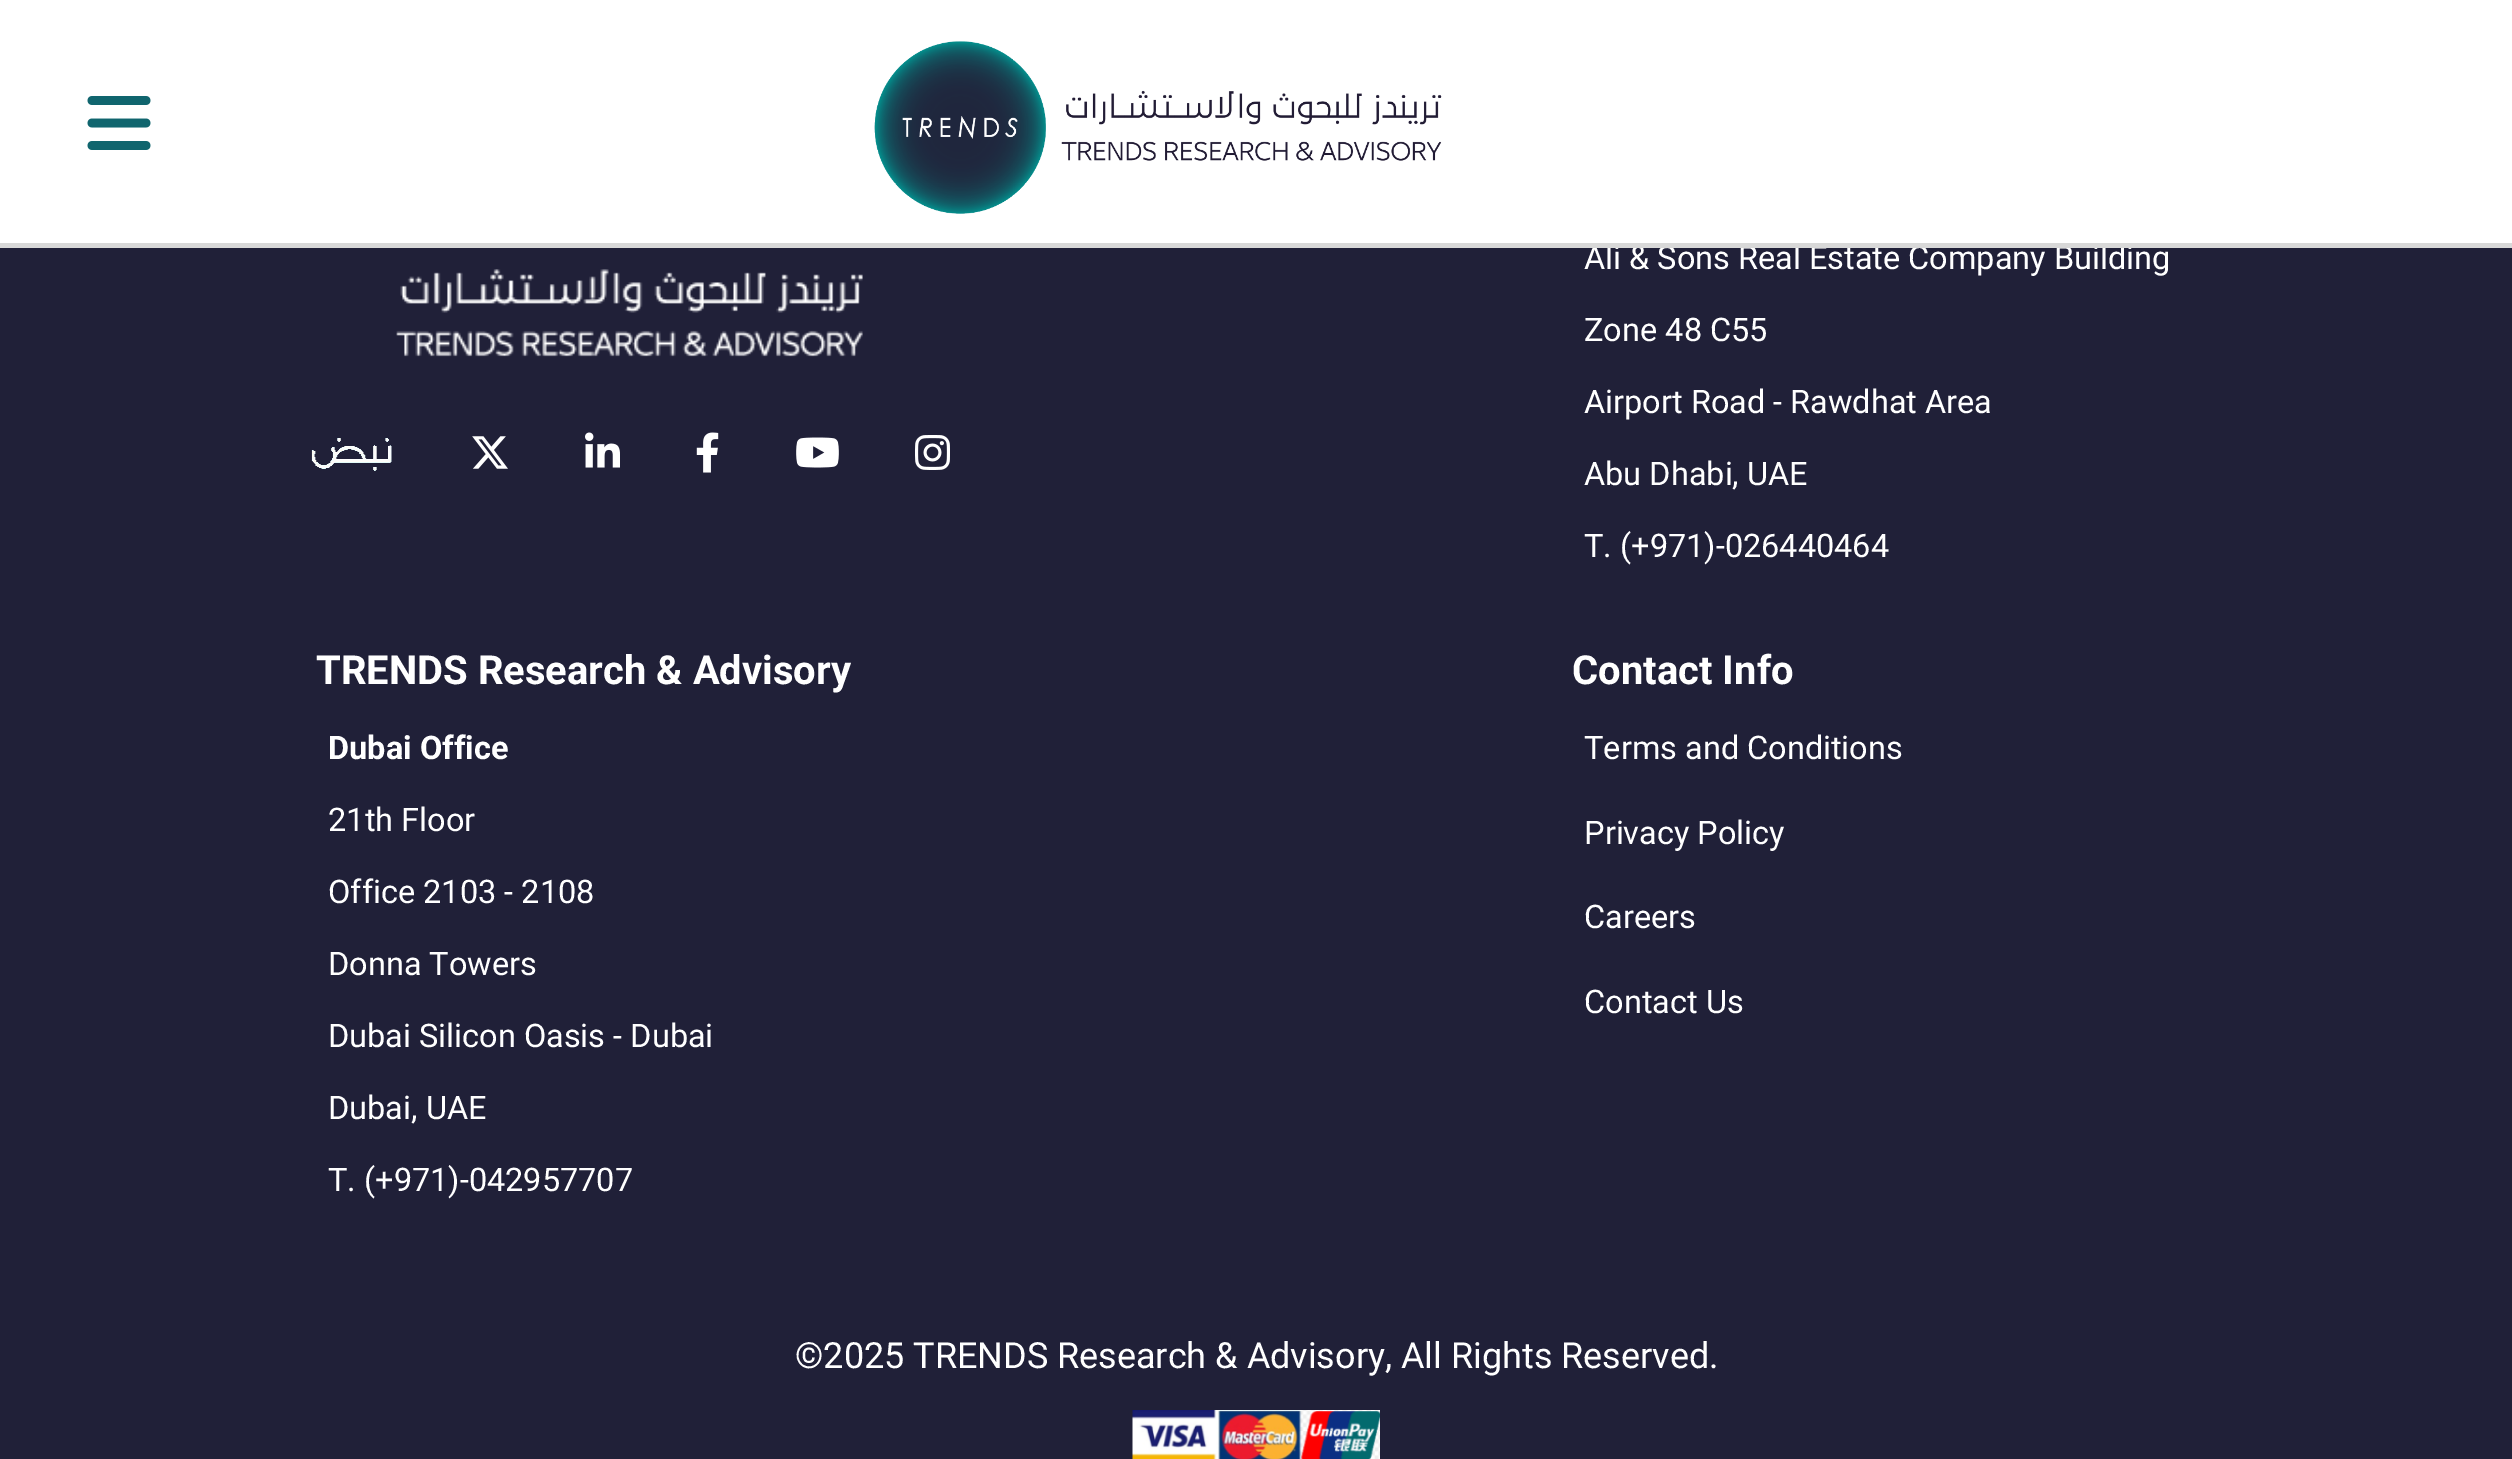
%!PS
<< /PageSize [2512 1459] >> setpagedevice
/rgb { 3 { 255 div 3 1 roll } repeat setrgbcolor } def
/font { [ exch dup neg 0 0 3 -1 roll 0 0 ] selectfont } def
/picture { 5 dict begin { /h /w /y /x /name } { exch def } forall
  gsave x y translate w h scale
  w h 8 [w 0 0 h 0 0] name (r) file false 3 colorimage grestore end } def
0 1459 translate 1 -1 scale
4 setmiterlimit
32 32 56 rgb
0 0 2512 1459 rectfill
255 255 255 rgb
0 0 2512 243 rectfill
(img/1.rgb) 87 96 64 54 picture
(img/2.rgb) 874 41 568 173 picture
(img/3.rgb) 396 269 467 88 picture
(img/4.rgb) 311 438 81 33 picture
(img/5.rgb) 472 436 36 33 picture
(img/6.rgb) 585 432 35 36 picture
(img/7.rgb) 696 432 23 41 picture
(img/8.rgb) 796 437 43 31 picture
(img/9.rgb) 915 435 35 35 picture
(img/10.rgb) 1132 1410 248 49 picture
/Roboto-Regular 32.5 font
1584 269 moveto (Ali & Sons Real Estate Company Building) show
216 216 216 rgb
0 243 2512 5 rectfill
255 255 255 rgb
[
  [(Zone 48 C55) 1584 341]
  [(Airport Road - Rawdhat Area) 1584 413]
  [(Abu Dhabi, UAE) 1584 485]
  [(T. \(+971\)-026440464) 1584 557]
] { aload pop moveto show } forall
/Roboto-Bold 40 font
316 684 moveto (TRENDS Research & Advisory) show
/Roboto-Bold 32.5 font
328 759 moveto (Dubai Office) show
/Roboto-Regular 32.5 font
[
  [(21th Floor) 328 831]
  [(Office 2103 - 2108) 328 903]
  [(Donna Towers) 328 975]
  [(Dubai Silicon Oasis - Dubai) 328 1047]
  [(Dubai, UAE) 328 1119]
  [(T. \(+971\)-042957707) 328 1191]
] { aload pop moveto show } forall
/Roboto-Bold 40 font
1572 684 moveto (Contact Info) show
/Roboto-Regular 32.5 font
[
  [(Terms and Conditions) 1584 759]
  [(Privacy Policy) 1584 844]
  [(Careers) 1584 928]
  [(Contact Us) 1584 1013]
] { aload pop moveto show } forall
/Roboto-Regular 36 font
795 1368 moveto (©2025 TRENDS Research & Advisory, All Rights Reserved.) show
showpage
